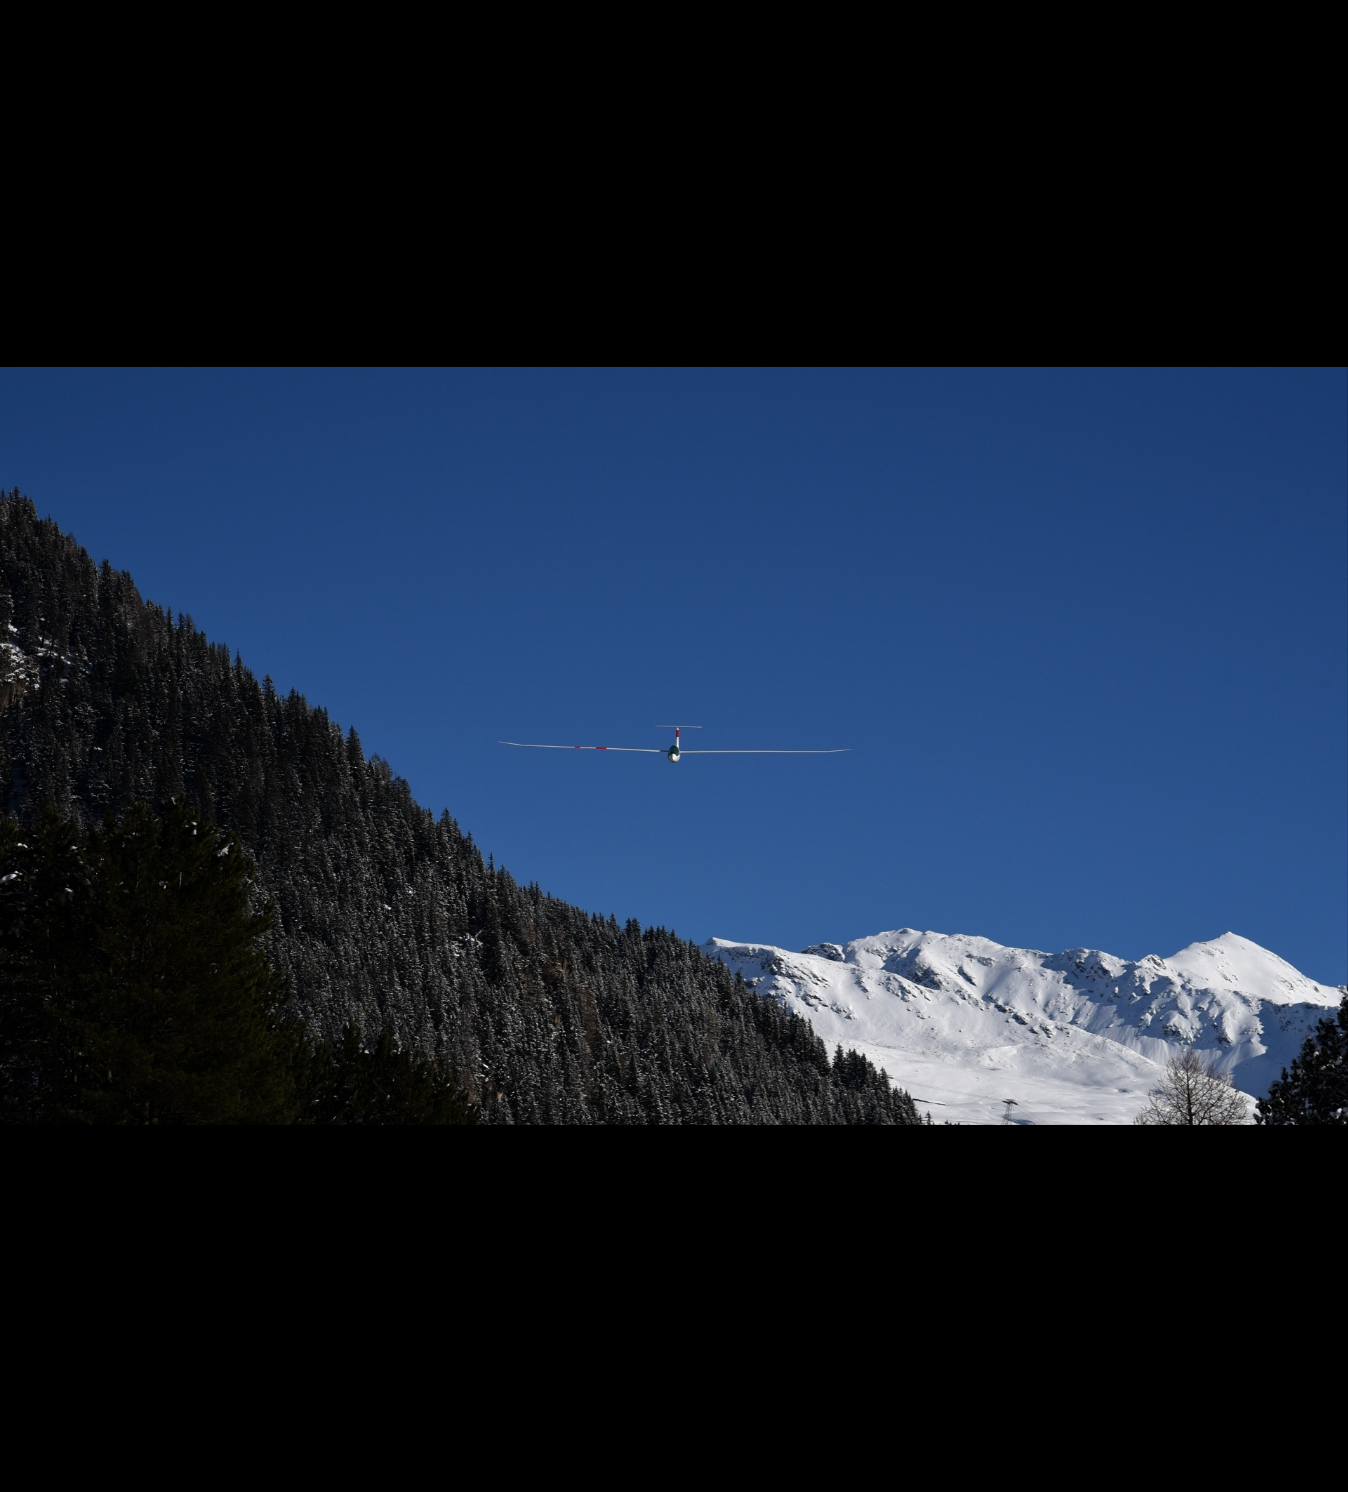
%!PS
<< /PageSize [1348 1492] >> setpagedevice
/rgb { 3 { 255 div 3 1 roll } repeat setrgbcolor } def
/picture { 5 dict begin { /h /w /y /x /name } { exch def } forall
  gsave x y translate w h scale
  w h 8 [w 0 0 h 0 0] name (r) file false 3 colorimage grestore end } def
0 1492 translate 1 -1 scale
4 setmiterlimit
0 0 0 rgb
0 0 1348 1492 rectfill
(img/1.rgb) 0 366 1348 759 picture
showpage
